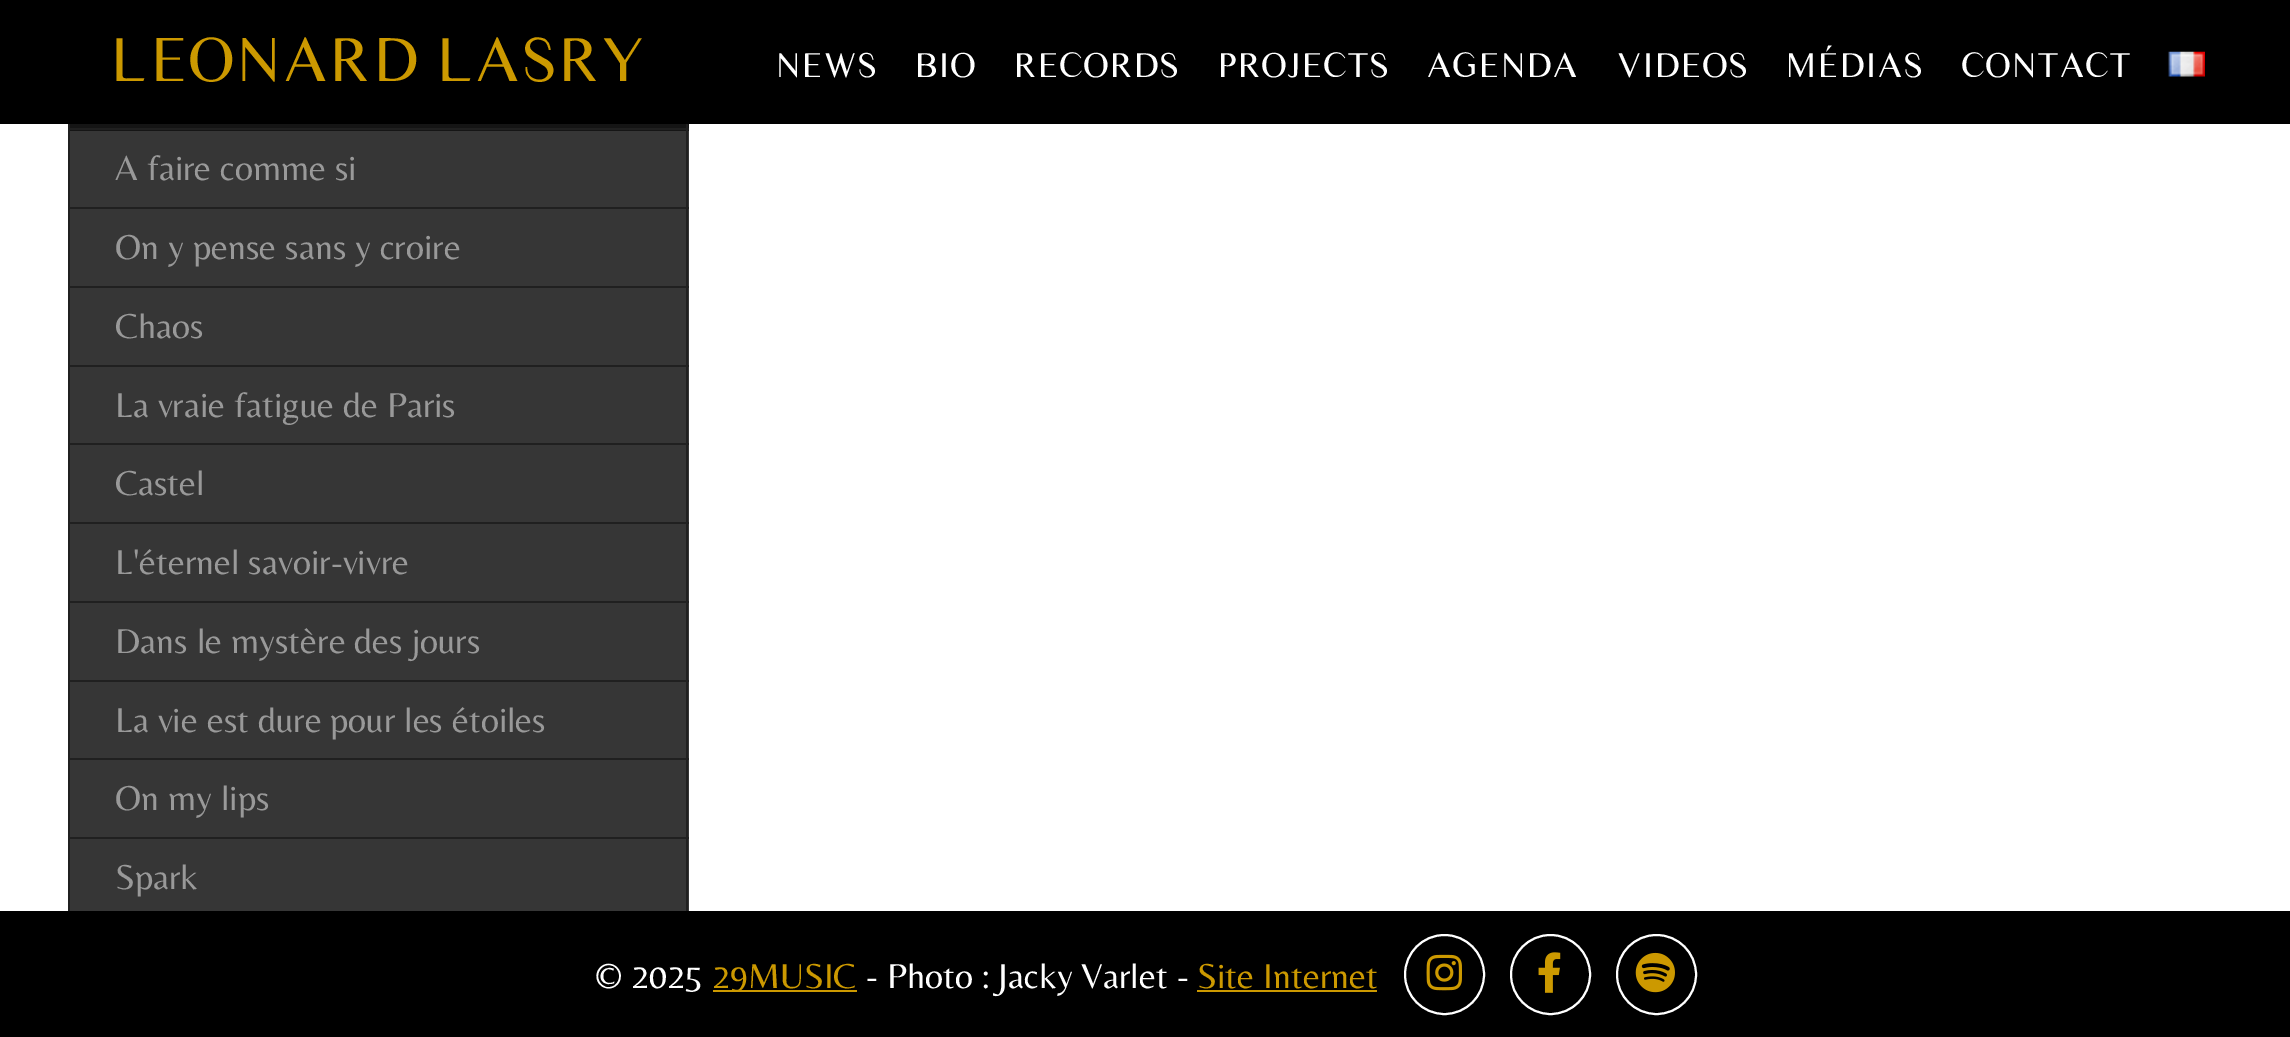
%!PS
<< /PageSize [2290 1037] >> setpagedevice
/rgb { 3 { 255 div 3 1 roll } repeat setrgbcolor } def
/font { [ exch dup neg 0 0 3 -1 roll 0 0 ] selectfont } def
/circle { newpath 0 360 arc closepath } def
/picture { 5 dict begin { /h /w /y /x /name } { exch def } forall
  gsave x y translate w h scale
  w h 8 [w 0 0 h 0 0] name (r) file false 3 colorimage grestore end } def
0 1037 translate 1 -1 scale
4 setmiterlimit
255 255 255 rgb
0 0 2290 1037 rectfill
0 0 0 rgb
0 0 2290 124 rectfill
(img/1.rgb) 2168 51 37 26 picture
[
  [70 124 619 7 21 21 21]
  [686 124 2 7 32 32 32]
  [68 128 621 2 32 32 32]
  [68 124 2 7 32 32 32]
  [70 131 619 76 54 54 54]
  [686 131 2 78 32 32 32]
  [68 207 621 2 32 32 32]
  [68 131 2 78 32 32 32]
  [70 209 619 77 54 54 54]
  [686 209 2 79 32 32 32]
  [68 286 621 2 32 32 32]
  [68 209 2 79 32 32 32]
  [70 288 619 77 54 54 54]
  [686 288 2 79 32 32 32]
  [68 365 621 2 32 32 32]
  [68 288 2 79 32 32 32]
  [70 367 619 155 54 54 54]
  [686 367 2 157 32 32 32]
  [68 443 621 2 32 32 32]
  [68 367 2 79 32 32 32]
  [68 522 621 2 32 32 32]
  [68 446 2 78 32 32 32]
  [70 524 619 77 54 54 54]
  [686 524 2 79 32 32 32]
  [68 601 621 2 32 32 32]
  [68 524 2 79 32 32 32]
  [70 603 619 77 54 54 54]
  [686 603 2 79 32 32 32]
  [68 680 621 2 32 32 32]
  [68 603 2 79 32 32 32]
  [70 682 619 155 54 54 54]
  [686 682 2 157 32 32 32]
  [68 758 621 2 32 32 32]
  [68 682 2 79 32 32 32]
  [68 837 621 2 32 32 32]
  [68 761 2 157 32 32 32]
  [70 839 619 72 54 54 54]
  [686 839 2 79 32 32 32]
  [0 911 2290 126 0 0 0]
  [713 990 144 2 204 153 0]
  [1197 990 180 2 204 153 0]
] { aload pop rgb rectfill } forall
255 255 255 rgb
2 setlinewidth
1444.5 974.5 39.5 circle stroke
(img/2.rgb) 1426 954 36 37 picture
1550.5 974.5 39.5 circle stroke
(img/3.rgb) 1538 952 23 41 picture
1656.5 974.5 39.5 circle stroke
(img/4.rgb) 1635 952 40 41 picture
/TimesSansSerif-Regular 64.75 font
204 153 0 rgb
109 81 moveto (LEONARD LASRY) show
/TimesSansSerif-Regular 36 font
255 255 255 rgb
[
  [(NEWS) 775 77]
  [(BIO) 914 77]
  [(RECORDS) 1013 77]
  [(PROJECTS) 1217 77]
  [(AGENDA) 1426 77]
  [(VIDEOS) 1616 77]
  [(MÉDIAS) 1785 77]
  [(CONTACT) 1961 77]
] { aload pop moveto show } forall
/Belleza-Regular 36 font
153 153 153 rgb
[
  [(A faire comme si) 115 180]
  [(On y pense sans y croire) 115 259]
  [(Chaos) 115 338]
  [(La vraie fatigue de Paris) 115 417]
  [(Castel) 115 495]
  [(L'éternel savoir-vivre) 115 574]
  [(Dans le mystère des jours) 115 653]
  [(La vie est dure pour les étoiles) 115 732]
  [(On my lips) 115 810]
  [(Spark) 115 889]
] { aload pop moveto show } forall
255 255 255 rgb
595 988 moveto (© 2025) show
204 153 0 rgb
712 988 moveto (29MUSIC) show
255 255 255 rgb
866 988 moveto (- Photo : Jacky Varlet -) show
204 153 0 rgb
1197 988 moveto (Site Internet) show
showpage
